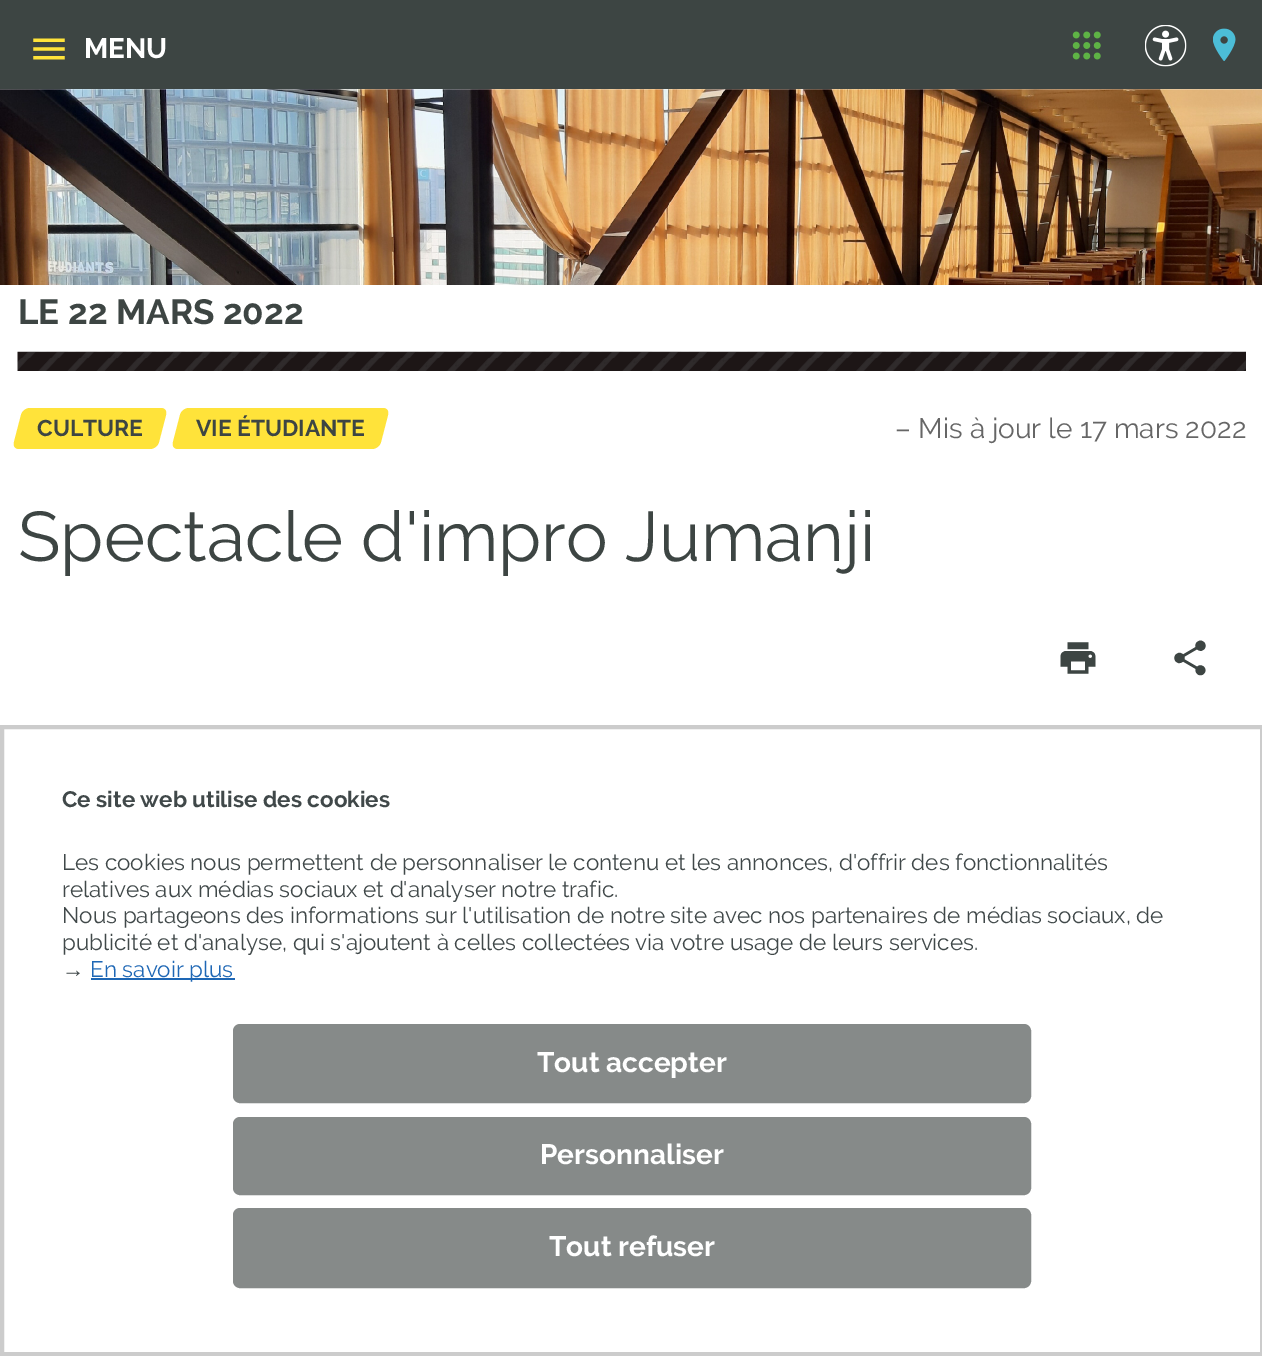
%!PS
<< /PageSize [1262 1356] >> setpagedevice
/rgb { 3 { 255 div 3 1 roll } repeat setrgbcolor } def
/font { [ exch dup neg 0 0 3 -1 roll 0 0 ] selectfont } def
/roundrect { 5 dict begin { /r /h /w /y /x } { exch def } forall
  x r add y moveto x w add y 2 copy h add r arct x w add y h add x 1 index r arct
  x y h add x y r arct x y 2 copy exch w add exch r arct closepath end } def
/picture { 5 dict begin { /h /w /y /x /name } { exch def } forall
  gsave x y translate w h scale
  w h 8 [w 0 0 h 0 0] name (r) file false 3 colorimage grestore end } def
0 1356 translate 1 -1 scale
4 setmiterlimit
255 255 255 rgb
0 0 1262 1356 rectfill
61 69 67 rgb
0 0 1262 89 rectfill
(img/1.rgb) 33 38 32 22 picture
(img/2.rgb) 1072 31 29 29 picture
(img/3.rgb) 1145 25 42 42 picture
(img/4.rgb) 1213 28 23 33 picture
(img/5.rgb) 0 89 1262 196 picture
(img/6.rgb) 17 351 1229 20 picture
255 227 58 rgb
30 408 moveto 161 408 lineto 165 408 167 411 166 415 curveto 159 442 lineto 158 446 154 449 150 449 curveto 19 449 lineto 15 449 13 446 14 442 curveto 21 415 lineto 22 411 26 408 30 408 curveto closepath fill
189 408 moveto 383 408 lineto 387 408 389 411 388 415 curveto 381 442 lineto 380 446 376 449 372 449 curveto 178 449 lineto 174 449 172 446 173 442 curveto 180 415 lineto 181 411 185 408 189 408 curveto closepath fill
(img/7.rgb) 1060 642 36 32 picture
(img/8.rgb) 1174 640 32 36 picture
204 204 204 rgb
4 setlinewidth
2 727 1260 627 rectstroke
30 103 181 rgb
91 978 144 2 rectfill
134 138 137 rgb
234 1025 796 77 6 roundrect gsave fill grestore
2 setlinewidth
stroke
234 1118 796 76 6 roundrect gsave fill grestore
stroke
234 1209 796 78 6 roundrect gsave fill grestore
stroke
/Raleway-Bold 28 font
255 255 255 rgb
84 58 moveto (MENU) show
/Raleway-Bold 35 font
61 69 67 rgb
18 324 moveto (LE 22 MARS 2022) show
/Raleway-Bold 22.75 font
37 436 moveto (CULTURE) show
196 436 moveto (VIE ÉTUDIANTE) show
/Raleway-Regular 28 font
102 102 102 rgb
895 438 moveto (– Mis à jour le 17 mars 2022) show
/Raleway-Regular 70 font
61 69 67 rgb
18 561 moveto (Spectacle d'impro Jumanji) show
/Raleway-Bold 22.4 font
64 72 73 rgb
62 807 moveto (Ce site web utilise des cookies) show
/Raleway-Regular 22.4 font
[
  [(Les cookies nous permettent de personnaliser le contenu et les annonces, d'offrir des fonctionnalités) 62 870]
  [(relatives aux médias sociaux et d'analyser notre trafic.) 62 897]
  [(Nous partageons des informations sur l'utilisation de notre site avec nos partenaires de médias sociaux, de) 62 923]
  [(publicité et d'analyse, qui s'ajoutent à celles collectées via votre usage de leurs services.) 62 950]
] { aload pop moveto show } forall
/LiberationSans-Regular 22.4 font
62 977 moveto (→) show
/Raleway-Regular 22.4 font
30 103 181 rgb
90 977 moveto (En savoir plus) show
/Raleway-Bold 28 font
255 255 255 rgb
[
  [(Tout accepter) 537 1072]
  [(Personnaliser) 540 1164]
  [(Tout refuser) 549 1256]
] { aload pop moveto show } forall
showpage
